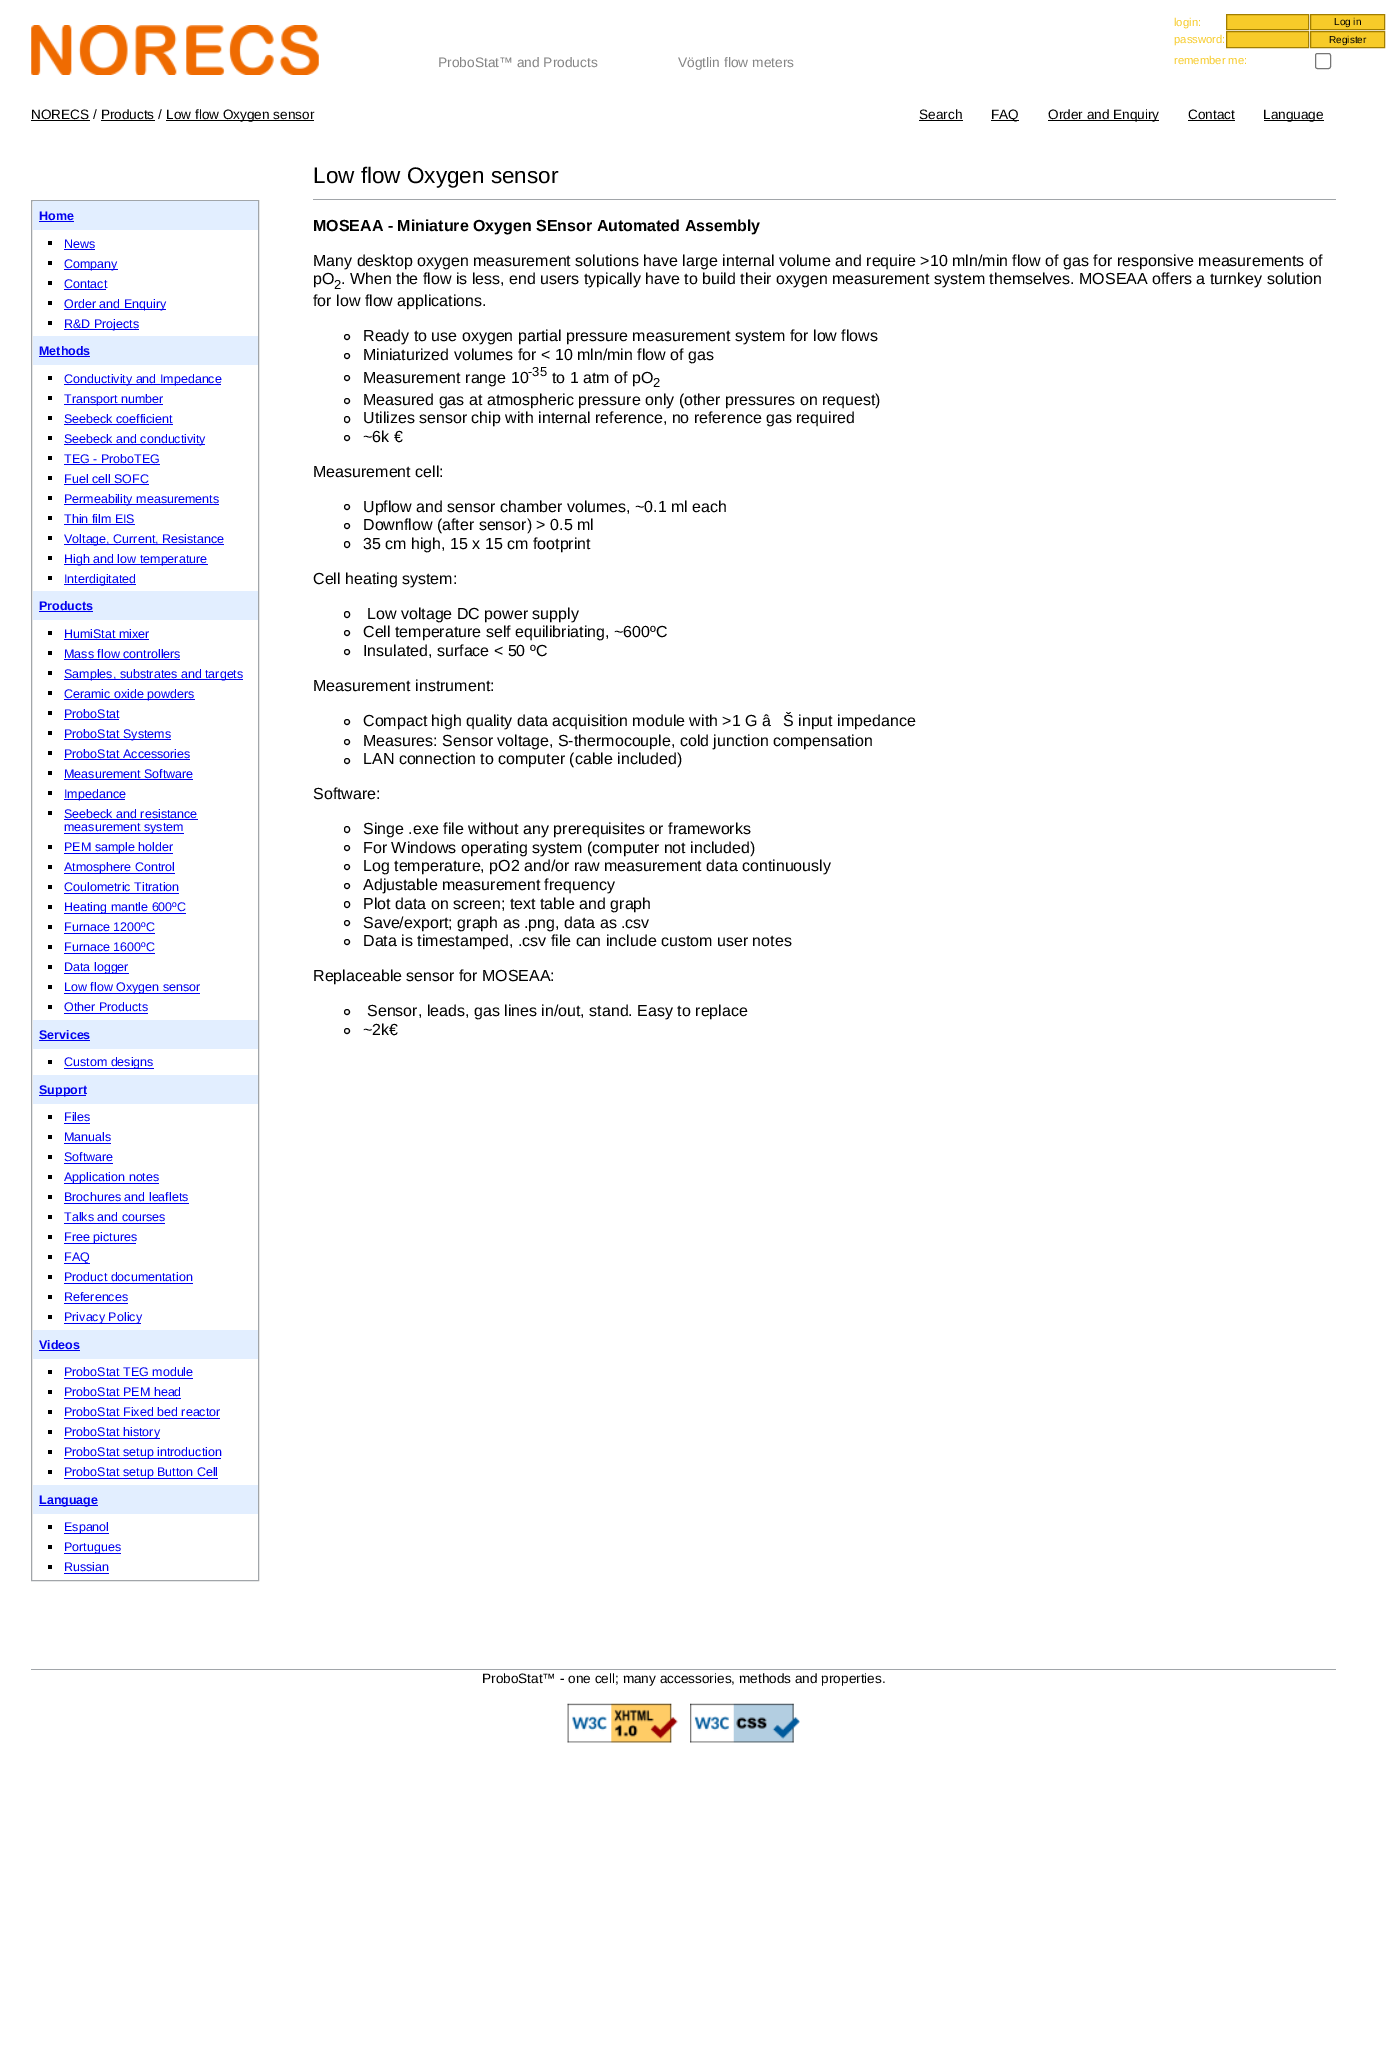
%!PS
<< /PageSize [1398 2069] >> setpagedevice
/rgb { 3 { 255 div 3 1 roll } repeat setrgbcolor } def
/font { [ exch dup neg 0 0 3 -1 roll 0 0 ] selectfont } def
/circle { newpath 0 360 arc closepath } def
/roundrect { 5 dict begin { /r /h /w /y /x } { exch def } forall
  x r add y moveto x w add y 2 copy h add r arct x w add y h add x 1 index r arct
  x y h add x y r arct x y 2 copy exch w add exch r arct closepath end } def
/picture { 5 dict begin { /h /w /y /x /name } { exch def } forall
  gsave x y translate w h scale
  w h 8 [w 0 0 h 0 0] name (r) file false 3 colorimage grestore end } def
0 2069 translate 1 -1 scale
4 setmiterlimit
255 255 255 rgb
0 0 1398 2069 rectfill
(img/1.rgb) 31 25 288 50 picture
247 203 41 rgb
1226.5 14.5 moveto 1308.5 14.5 lineto 1308.5 29.5 lineto 1226.5 29.5 lineto closepath gsave fill grestore
162 126 0 rgb
stroke
247 203 41 rgb
1310.5 14.5 moveto 1384.5 14.5 lineto 1384.5 29.5 lineto 1310.5 29.5 lineto closepath gsave fill grestore
162 126 0 rgb
stroke
247 203 41 rgb
1226.5 31.5 moveto 1308.5 31.5 lineto 1308.5 47.5 lineto 1226.5 47.5 lineto closepath gsave fill grestore
162 126 0 rgb
stroke
247 203 41 rgb
1310.5 31.5 moveto 1384.5 31.5 lineto 1384.5 47.5 lineto 1310.5 47.5 lineto closepath gsave fill grestore
162 126 0 rgb
stroke
118 118 118 rgb
1315.5 53.5 15 15 2 roundrect stroke
[
  [31 120 59 1 0 0 0]
  [166 120 148 1 0 0 0]
  [101 120 54 1 0 0 0]
  [919 120 44 1 0 0 0]
  [991 120 28 1 0 0 0]
  [1048 120 111 1 0 0 0]
  [1188 120 47 1 0 0 0]
  [1264 120 60 1 0 0 0]
  [313 199 1023 1 161 165 169]
] { aload pop rgb rectfill } forall
31.5 200.5 227 1380 rectstroke
[
  [33 201 225 29 226 238 255]
  [39 221 35 1 0 0 238]
  [48 241 4 4 0 0 0]
  [64 249 31 1 0 0 238]
  [48 261 4 4 0 0 0]
  [64 269 54 1 0 0 238]
  [48 281 4 4 0 0 0]
  [64 289 42 1 0 0 238]
  [48 301 4 4 0 0 0]
  [64 309 102 1 0 0 238]
  [48 321 4 4 0 0 0]
  [64 329 75 1 0 0 238]
  [33 336 225 29 226 238 255]
  [39 356 51 1 0 0 238]
  [48 376 4 4 0 0 0]
  [64 384 157 1 0 0 238]
  [48 396 4 4 0 0 0]
  [64 404 99 1 0 0 238]
  [48 416 4 4 0 0 0]
  [64 424 109 1 0 0 238]
  [48 436 4 4 0 0 0]
  [64 444 141 1 0 0 238]
  [48 456 4 4 0 0 0]
  [64 464 96 1 0 0 238]
  [48 476 4 4 0 0 0]
  [64 484 85 1 0 0 238]
  [48 496 4 4 0 0 0]
  [64 504 155 1 0 0 238]
  [48 516 4 4 0 0 0]
  [64 524 71 1 0 0 238]
  [48 536 4 4 0 0 0]
  [64 544 160 1 0 0 238]
  [48 556 4 4 0 0 0]
  [64 564 144 1 0 0 238]
  [48 576 4 4 0 0 0]
  [64 584 72 1 0 0 238]
  [33 591 225 29 226 238 255]
  [39 611 54 1 0 0 238]
  [48 631 4 4 0 0 0]
  [64 639 85 1 0 0 238]
  [48 651 4 4 0 0 0]
  [64 659 116 1 0 0 238]
  [48 671 4 4 0 0 0]
  [64 679 179 1 0 0 238]
  [48 691 4 4 0 0 0]
  [64 699 131 1 0 0 238]
  [48 711 4 4 0 0 0]
  [64 719 55 1 0 0 238]
  [48 731 4 4 0 0 0]
  [64 739 107 1 0 0 238]
  [48 751 4 4 0 0 0]
  [64 759 126 1 0 0 238]
  [48 771 4 4 0 0 0]
  [64 779 129 1 0 0 238]
  [48 791 4 4 0 0 0]
  [64 799 61 1 0 0 238]
  [48 811 4 4 0 0 0]
  [64 819 134 1 0 0 238]
  [64 833 120 1 0 0 238]
  [48 845 4 4 0 0 0]
  [64 853 109 1 0 0 238]
  [48 865 4 4 0 0 0]
  [64 873 111 1 0 0 238]
  [48 885 4 4 0 0 0]
  [64 893 115 1 0 0 238]
  [48 905 4 4 0 0 0]
  [64 913 122 1 0 0 238]
  [48 925 4 4 0 0 0]
  [64 933 91 1 0 0 238]
  [48 945 4 4 0 0 0]
  [64 953 91 1 0 0 238]
  [48 965 4 4 0 0 0]
  [64 973 65 1 0 0 238]
  [48 985 4 4 0 0 0]
  [64 993 136 1 0 0 238]
  [48 1005 4 4 0 0 0]
  [64 1013 84 1 0 0 238]
  [33 1020 225 29 226 238 255]
  [39 1040 51 1 0 0 238]
  [48 1060 4 4 0 0 0]
  [64 1068 90 1 0 0 238]
  [33 1075 225 29 226 238 255]
  [39 1095 47 1 0 0 238]
  [48 1115 4 4 0 0 0]
  [64 1123 26 1 0 0 238]
  [48 1135 4 4 0 0 0]
  [64 1143 47 1 0 0 238]
  [48 1155 4 4 0 0 0]
  [64 1163 49 1 0 0 238]
  [48 1175 4 4 0 0 0]
  [64 1183 95 1 0 0 238]
  [48 1195 4 4 0 0 0]
  [64 1203 125 1 0 0 238]
  [48 1215 4 4 0 0 0]
  [64 1223 101 1 0 0 238]
  [48 1235 4 4 0 0 0]
  [64 1243 72 1 0 0 238]
  [48 1255 4 4 0 0 0]
  [64 1263 26 1 0 0 238]
  [48 1275 4 4 0 0 0]
  [64 1283 129 1 0 0 238]
  [48 1295 4 4 0 0 0]
  [64 1303 64 1 0 0 238]
  [48 1315 4 4 0 0 0]
  [64 1323 77 1 0 0 238]
  [33 1330 225 29 226 238 255]
  [39 1350 41 1 0 0 238]
  [48 1370 4 4 0 0 0]
  [64 1378 129 1 0 0 238]
  [48 1390 4 4 0 0 0]
  [64 1398 117 1 0 0 238]
  [48 1410 4 4 0 0 0]
  [64 1418 156 1 0 0 238]
  [48 1430 4 4 0 0 0]
  [64 1438 96 1 0 0 238]
  [48 1450 4 4 0 0 0]
  [64 1458 157 1 0 0 238]
  [48 1470 4 4 0 0 0]
  [64 1478 154 1 0 0 238]
  [33 1485 225 29 226 238 255]
  [39 1505 59 1 0 0 238]
  [48 1525 4 4 0 0 0]
  [64 1533 45 1 0 0 238]
  [48 1545 4 4 0 0 0]
  [64 1553 57 1 0 0 238]
  [48 1565 4 4 0 0 0]
  [64 1573 45 1 0 0 238]
] { aload pop rgb rectfill } forall
0 0 0 rgb
347 337 2.5 circle stroke
347 356 2.5 circle stroke
347 378 2.5 circle stroke
347 401 2.5 circle stroke
344.5 416.5 5 6 2.5 roundrect stroke
347 438 2.5 circle stroke
347 507 2.5 circle stroke
347 526 2.5 circle stroke
344.5 541.5 5 6 2.5 roundrect stroke
344.5 611.5 5 6 2.5 roundrect stroke
347 633 2.5 circle stroke
347 652 2.5 circle stroke
347 722 2.5 circle stroke
347 742 2.5 circle stroke
347 761 2.5 circle stroke
344.5 826.5 5 6 2.5 roundrect stroke
347 848 2.5 circle stroke
347 867 2.5 circle stroke
347 886 2.5 circle stroke
344.5 901.5 5 6 2.5 roundrect stroke
347 923 2.5 circle stroke
347 942 2.5 circle stroke
347 1012 2.5 circle stroke
347 1031 2.5 circle stroke
161 165 169 rgb
31 1669 1305 1 rectfill
(img/2.rgb) 567 1703 111 40 picture
(img/3.rgb) 690 1703 110 40 picture
/LiberationSans-Regular 13.75 font
132 132 132 rgb
438 67 moveto (ProboStat™ and Products) show
678 67 moveto (Vögtlin flow meters) show
/LiberationSans-Regular 11.25 font
247 203 41 rgb
1174 26 moveto (login:) show
/LiberationSans-Regular 10 font
0 0 0 rgb
1334 25 moveto (Log in) show
/LiberationSans-Regular 11.25 font
247 203 41 rgb
1174 43 moveto (password:) show
/LiberationSans-Regular 10 font
0 0 0 rgb
1329 43 moveto (Register) show
/LiberationSans-Regular 11.25 font
247 203 41 rgb
1174 64 moveto (remember me:) show
/LiberationSans-Regular 13.6 font
0 0 0 rgb
[
  [(NORECS / Products /) 31 119]
  [(Low flow Oxygen sensor) 166 119]
  [(Search) 919 119]
  [(FAQ) 991 119]
  [(Order and Enquiry) 1048 119]
  [(Contact) 1188 119]
  [(Language) 1263 119]
] { aload pop moveto show } forall
/LiberationSans-Regular 22.5 font
313 183 moveto (Low flow Oxygen sensor) show
/LiberationSans-Bold 12.5 font
0 0 238 rgb
39 220 moveto (Home) show
/LiberationSans-Regular 12.5 font
[
  [(News) 64 248]
  [(Company) 64 268]
  [(Contact) 64 288]
  [(Order and Enquiry) 64 308]
  [(R&D Projects) 64 328]
] { aload pop moveto show } forall
/LiberationSans-Bold 12.5 font
39 355 moveto (Methods) show
/LiberationSans-Regular 12.5 font
[
  [(Conductivity and Impedance) 64 383]
  [(Transport number) 64 403]
  [(Seebeck coefficient) 64 423]
  [(Seebeck and conductivity) 64 443]
  [(TEG - ProboTEG) 64 463]
  [(Fuel cell SOFC) 64 483]
  [(Permeability measurements) 64 503]
  [(Thin film EIS) 64 523]
  [(Voltage, Current, Resistance) 64 543]
  [(High and low temperature) 64 563]
  [(Interdigitated) 64 583]
] { aload pop moveto show } forall
/LiberationSans-Bold 12.5 font
39 610 moveto (Products) show
/LiberationSans-Regular 12.5 font
[
  [(HumiStat mixer) 64 638]
  [(Mass flow controllers) 64 658]
  [(Samples, substrates and targets) 64 678]
  [(Ceramic oxide powders) 64 698]
  [(ProboStat) 64 718]
  [(ProboStat Systems) 64 738]
  [(ProboStat Accessories) 64 758]
  [(Measurement Software) 64 778]
  [(Impedance) 64 798]
  [(Seebeck and resistance) 64 818]
  [(measurement system) 64 831]
  [(PEM sample holder) 64 851]
  [(Atmosphere Control) 64 871]
  [(Coulometric Titration) 64 891]
  [(Heating mantle 600ºC) 64 911]
  [(Furnace 1200ºC) 64 931]
  [(Furnace 1600ºC) 64 951]
  [(Data logger) 64 971]
  [(Low flow Oxygen sensor) 64 991]
  [(Other Products) 64 1011]
] { aload pop moveto show } forall
/LiberationSans-Bold 12.5 font
39 1039 moveto (Services) show
/LiberationSans-Regular 12.5 font
64 1066 moveto (Custom designs) show
/LiberationSans-Bold 12.5 font
39 1094 moveto (Support) show
/LiberationSans-Regular 12.5 font
[
  [(Files) 64 1121]
  [(Manuals) 64 1141]
  [(Software) 64 1161]
  [(Application notes) 64 1181]
  [(Brochures and leaflets) 64 1201]
  [(Talks and courses) 64 1221]
  [(Free pictures) 64 1241]
  [(FAQ) 64 1261]
  [(Product documentation) 64 1281]
  [(References) 64 1301]
  [(Privacy Policy) 64 1321]
] { aload pop moveto show } forall
/LiberationSans-Bold 12.5 font
39 1349 moveto (Videos) show
/LiberationSans-Regular 12.5 font
[
  [(ProboStat TEG module) 64 1376]
  [(ProboStat PEM head) 64 1396]
  [(ProboStat Fixed bed reactor) 64 1416]
  [(ProboStat history) 64 1436]
  [(ProboStat setup introduction) 64 1456]
  [(ProboStat setup Button Cell) 64 1476]
] { aload pop moveto show } forall
/LiberationSans-Bold 12.5 font
39 1504 moveto (Language) show
/LiberationSans-Regular 12.5 font
[
  [(Espanol) 64 1531]
  [(Portugues) 64 1551]
  [(Russian) 64 1571]
] { aload pop moveto show } forall
/LiberationSans-Bold 16 font
0 0 0 rgb
313 231 moveto (MOSEAA - Miniature Oxygen SEnsor Automated Assembly) show
/LiberationSans-Regular 16 font
313 266 moveto (Many desktop oxygen measurement solutions have large internal volume and require >10 mln/min flow of gas for responsive measurements of) show
313 284 moveto (pO) show
/LiberationSans-Regular 13 font
334 289 moveto (2) show
/LiberationSans-Regular 16 font
[
  [(. When the flow is less, end users typically have to build their oxygen measurement system themselves. MOSEAA offers a turnkey solution) 341 284]
  [(for low flow applications.) 313 306]
  [(Ready to use oxygen partial pressure measurement system for low flows) 363 341]
  [(Miniaturized volumes for < 10 mln/min flow of gas) 363 360]
  [(Measurement range 10) 363 383]
] { aload pop moveto show } forall
/LiberationSans-Regular 13 font
528 376 moveto (-35) show
/LiberationSans-Regular 16 font
552 383 moveto (to 1 atm of pO) show
/LiberationSans-Regular 13 font
653 387 moveto (2) show
/LiberationSans-Regular 16 font
[
  [(Measured gas at atmospheric pressure only \(other pressures on request\)) 363 405]
  [(Utilizes sensor chip with internal reference, no reference gas required) 363 423]
  [(~6k €) 363 442]
  [(Measurement cell:) 313 477]
  [(Upflow and sensor chamber volumes, ~0.1 ml each) 363 512]
  [(Downflow \(after sensor\) > 0.5 ml) 363 530]
  [(35 cm high, 15 x 15 cm footprint) 363 549]
  [(Cell heating system:) 313 584]
  [(Low voltage DC power supply) 367 619]
  [(Cell temperature self equilibriating, ~600ºC) 363 637]
  [(Insulated, surface < 50 ºC) 363 656]
  [(Measurement instrument:) 313 691]
  [(Compact high quality data acquisition module with >1 G â) 363 726]
  [(Š input impedance) 783 726]
  [(Measures: Sensor voltage, S-thermocouple, cold junction compensation) 363 746]
  [(LAN connection to computer \(cable included\)) 363 764]
  [(Software:) 313 799]
  [(Singe .exe file without any prerequisites or frameworks) 363 834]
  [(For Windows operating system \(computer not included\)) 363 853]
  [(Log temperature, pO2 and/or raw measurement data continuously) 363 871]
  [(Adjustable measurement frequency) 363 890]
  [(Plot data on screen; text table and graph) 363 909]
  [(Save/export; graph as .png, data as .csv) 363 928]
  [(Data is timestamped, .csv file can include custom user notes) 363 946]
  [(Replaceable sensor for MOSEAA:) 313 981]
  [(Sensor, leads, gas lines in/out, stand. Easy to replace) 367 1016]
  [(~2k€) 363 1035]
] { aload pop moveto show } forall
/LiberationSans-Regular 13.6 font
482 1683 moveto (ProboStat™ - one cell; many accessories, methods and properties.) show
showpage
